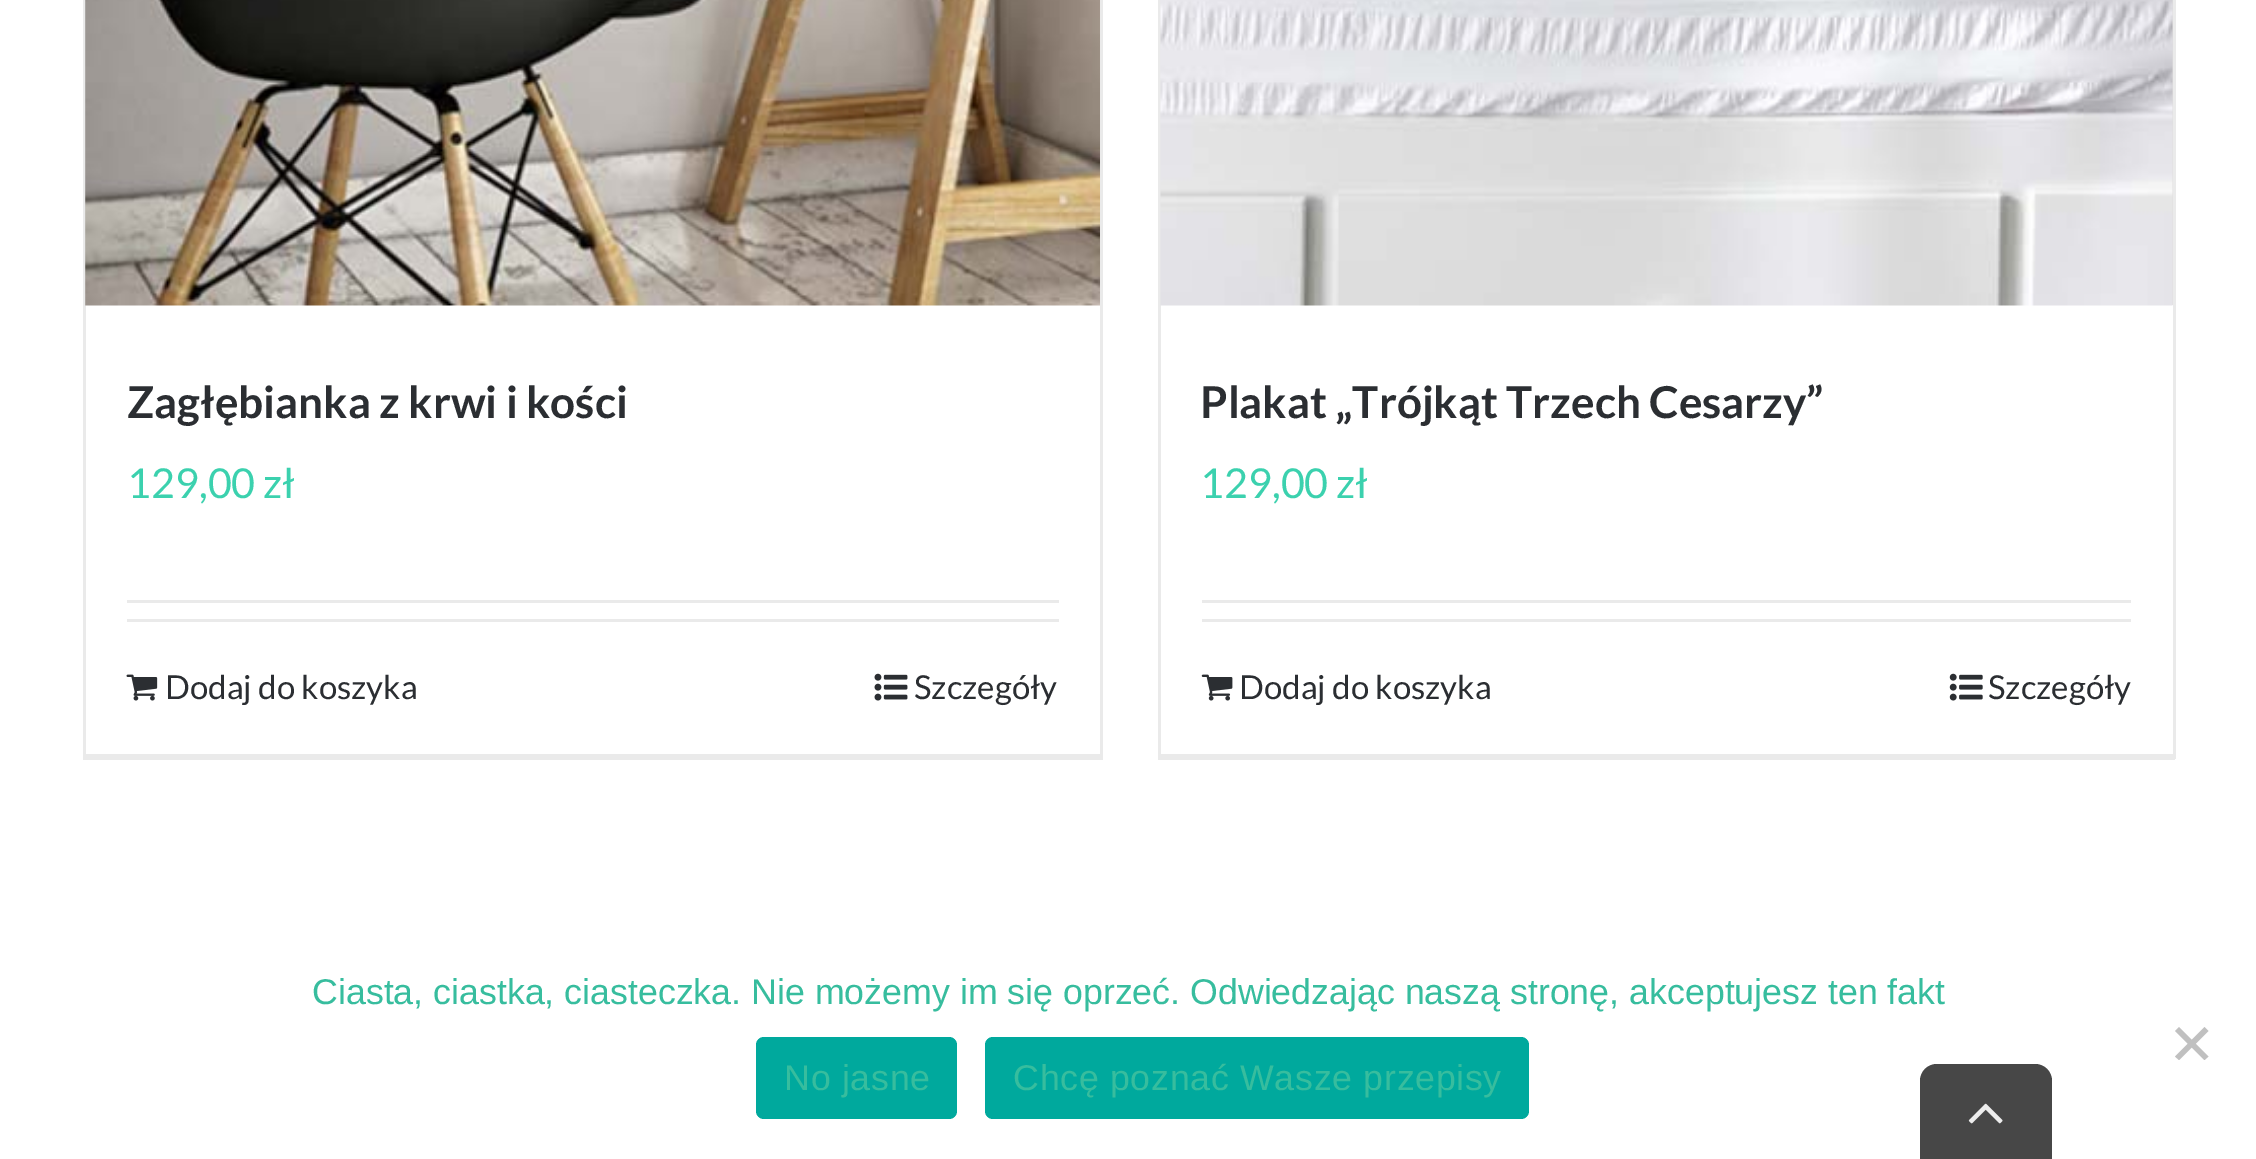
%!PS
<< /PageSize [2256 1159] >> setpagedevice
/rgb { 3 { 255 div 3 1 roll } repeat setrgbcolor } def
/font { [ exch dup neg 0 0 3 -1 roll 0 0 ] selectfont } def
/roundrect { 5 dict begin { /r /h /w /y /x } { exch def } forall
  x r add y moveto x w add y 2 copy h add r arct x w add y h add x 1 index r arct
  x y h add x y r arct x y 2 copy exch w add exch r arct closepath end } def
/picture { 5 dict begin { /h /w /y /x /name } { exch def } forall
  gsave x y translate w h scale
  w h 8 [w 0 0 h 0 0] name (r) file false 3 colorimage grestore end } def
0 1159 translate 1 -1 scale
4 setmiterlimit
255 255 255 rgb
0 0 2256 1159 rectfill
[
  [1100 0 3 759 234 234 234]
  [83 754 1020 6 234 234 234]
  [83 0 3 759 234 234 234]
] { aload pop rgb rectfill } forall
(img/1.rgb) 85 0 1015 306 picture
127 600 932 3 rectfill
127 619 932 3 rectfill
(img/2.rgb) 126 674 32 27 picture
(img/3.rgb) 874 673 34 28 picture
[
  [2173 0 3 759 234 234 234]
  [1158 754 1017 6 234 234 234]
  [1158 0 3 759 234 234 234]
  [2172 0 1 305 224 222 222]
] { aload pop rgb rectfill } forall
(img/4.rgb) 1160 0 1013 306 picture
234 234 234 rgb
1202 600 929 3 rectfill
1202 619 929 3 rectfill
(img/5.rgb) 1201 674 32 27 picture
(img/6.rgb) 1949 673 34 28 picture
192 192 192 rgb
2204.5 1027 moveto 2208.5 1031 lineto 2179 1060 lineto 2175 1056.5 lineto closepath fill
2175 1031 moveto 2179 1027 lineto 2208.5 1056.5 lineto 2204.5 1060 lineto closepath fill
0 169 157 rgb
756 1037 201 82 8 roundrect fill
985 1037 544 82 8 roundrect fill
71 71 71 rgb
1937 1064 moveto 2035 1064 lineto 2044.5 1064 2052 1071.5 2052 1081 curveto 2052 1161 lineto 1920 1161 lineto 1920 1081 lineto 1920 1071.5 1927.5 1064 1937 1064 curveto closepath fill
(img/7.rgb) 1968 1103 35 21 picture
/Lato-Bold 44 font
43 46 50 rgb
127 418 moveto (Zagłębianka z krwi i kości) show
/Lato-Regular 41.25 font
59 209 174 rgb
127 498 moveto (129,00 zł) show
/Lato-Regular 33 font
43 46 50 rgb
165 699 moveto (Dodaj do koszyka) show
914 699 moveto (Szczegóły) show
/Lato-Bold 44 font
1200 418 moveto (Plakat „Trójkąt Trzech Cesarzy”) show
/Lato-Regular 41.25 font
59 209 174 rgb
1200 498 moveto (129,00 zł) show
/Lato-Regular 33 font
43 46 50 rgb
1239 699 moveto (Dodaj do koszyka) show
1988 699 moveto (Szczegóły) show
/LiberationSans-Regular 35.75 font
55 189 158 rgb
312 1004 moveto (Ciasta, ciastka, ciasteczka. Nie możemy im się oprzeć. Odwiedzając naszą stronę, akceptujesz ten fakt) show
784 1090 moveto 0.7 0 (No jasne) ashow
1013 1090 moveto 0.7 0 (Chcę poznać Wasze przepisy) ashow
showpage
